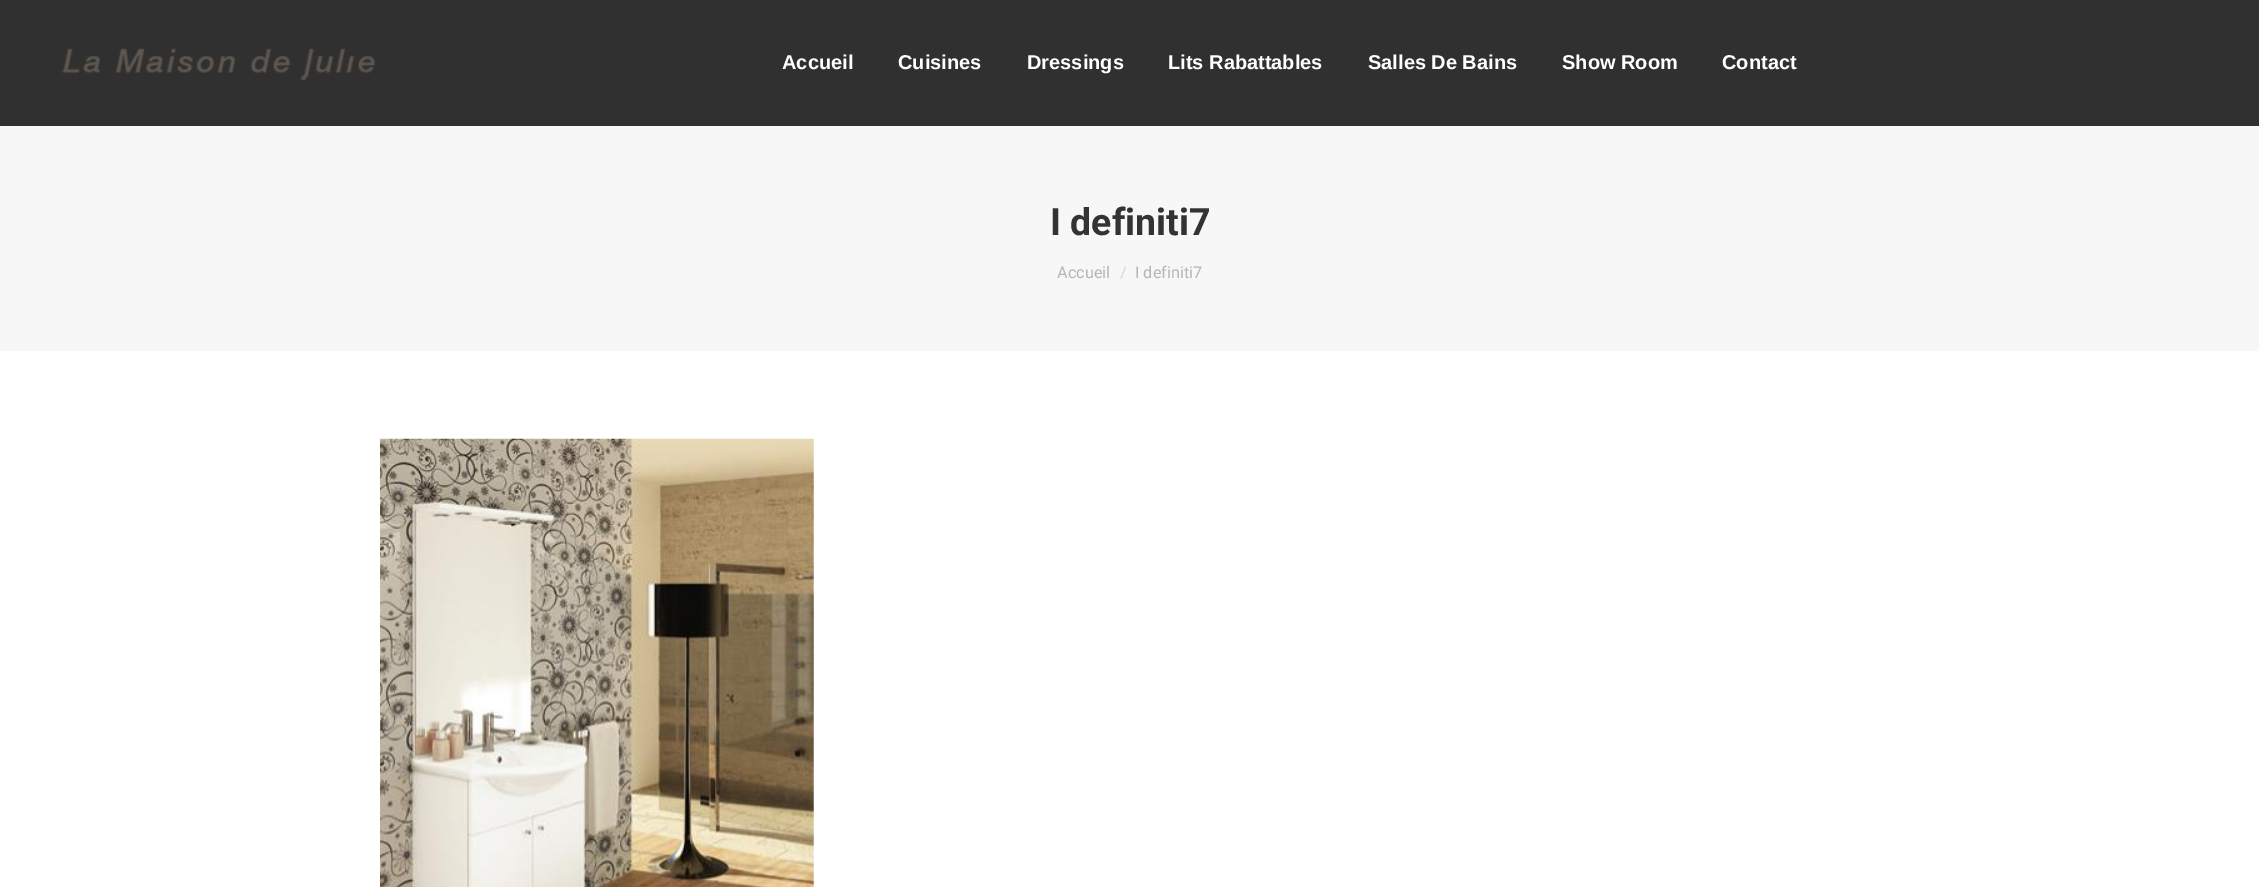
%!PS
<< /PageSize [2259 887] >> setpagedevice
/rgb { 3 { 255 div 3 1 roll } repeat setrgbcolor } def
/font { [ exch dup neg 0 0 3 -1 roll 0 0 ] selectfont } def
/picture { 5 dict begin { /h /w /y /x /name } { exch def } forall
  gsave x y translate w h scale
  w h 8 [w 0 0 h 0 0] name (r) file false 3 colorimage grestore end } def
0 887 translate 1 -1 scale
4 setmiterlimit
255 255 255 rgb
0 0 2259 887 rectfill
48 48 48 rgb
0 0 2259 126 rectfill
(img/1.rgb) 62 48 313 32 picture
247 247 247 rgb
0 126 2259 225 rectfill
(img/2.rgb) 380 438 434 449 picture
/LiberationSans-Bold 20 font
255 255 255 rgb
[
  [(Accueil) 782 69]
  [(Cuisines) 898 69]
  [(Dressings) 1027 69]
  [(Lits Rabattables) 1168 69]
  [(Salles De Bains) 1368 69]
  [(Show Room) 1562 69]
  [(Contact) 1722 69]
] { aload pop moveto show } forall
/Roboto-Bold 37.5 font
51 51 51 rgb
1050 235 moveto (I definiti7) show
/Roboto-Regular 16.25 font
180 181 187 rgb
1057 278 moveto (Accueil) show
214 214 217 rgb
1120 278 moveto (/) show
180 181 187 rgb
1135 278 moveto (I definiti7) show
showpage
